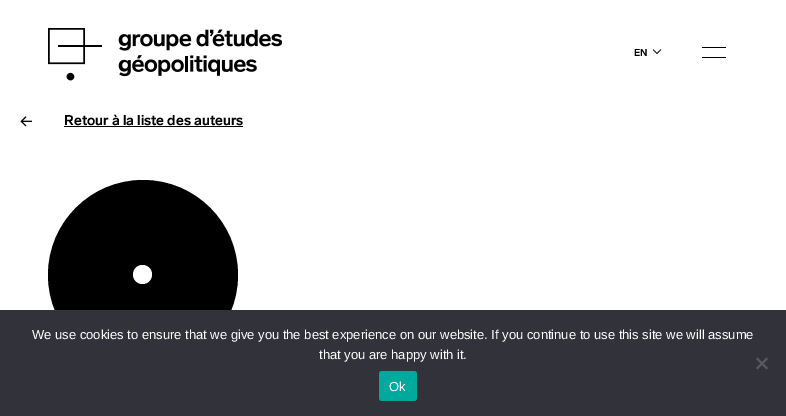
%!PS
<< /PageSize [786 416] >> setpagedevice
/rgb { 3 { 255 div 3 1 roll } repeat setrgbcolor } def
/font { [ exch dup neg 0 0 3 -1 roll 0 0 ] selectfont } def
/circle { newpath 0 360 arc closepath } def
/roundrect { 5 dict begin { /r /h /w /y /x } { exch def } forall
  x r add y moveto x w add y 2 copy h add r arct x w add y h add x 1 index r arct
  x y h add x y r arct x y 2 copy exch w add exch r arct closepath end } def
/picture { 5 dict begin { /h /w /y /x /name } { exch def } forall
  gsave x y translate w h scale
  w h 8 [w 0 0 h 0 0] name (r) file false 3 colorimage grestore end } def
0 416 translate 1 -1 scale
4 setmiterlimit
255 255 255 rgb
0 0 786 416 rectfill
(img/1.rgb) 48 28 235 53 picture
(img/2.rgb) 652 49 10 5 picture
0 0 0 rgb
702 47 moveto 726 47 lineto 726 48 lineto 702 48 lineto closepath 702 57 moveto 726 57 lineto 726 58 lineto 702 58 lineto closepath fill
(img/3.rgb) 20 116 12 11 picture
64 126 179 1 rectfill
143 275 95 circle fill
255 255 255 rgb
142.5 274.5 9.5 circle fill
50 50 58 rgb
0 310 786 106 rectfill
89 89 93 rgb
766.5 357.5 moveto 768 359 lineto 757.5 369.5 lineto 756 368 lineto closepath fill
756 359 moveto 757.5 357.5 lineto 768 368 lineto 766.5 369.5 lineto closepath fill
0 169 157 rgb
379 371 38 30 3 roundrect fill
/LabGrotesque-Bold 10 font
0 0 0 rgb
634 56 moveto (EN) show
/LabGrotesque-Bold 14 font
64 125 moveto (Retour à la liste des auteurs) show
/LiberationSans-Regular 13 font
255 255 255 rgb
[
  [(We use cookies to ensure that we give you the best experience on our website. If you continue to use this site we will assume) 32 339]
  [(that you are happy with it.) 319 359]
  [(Ok) 389 391]
] { aload pop moveto show } forall
showpage
